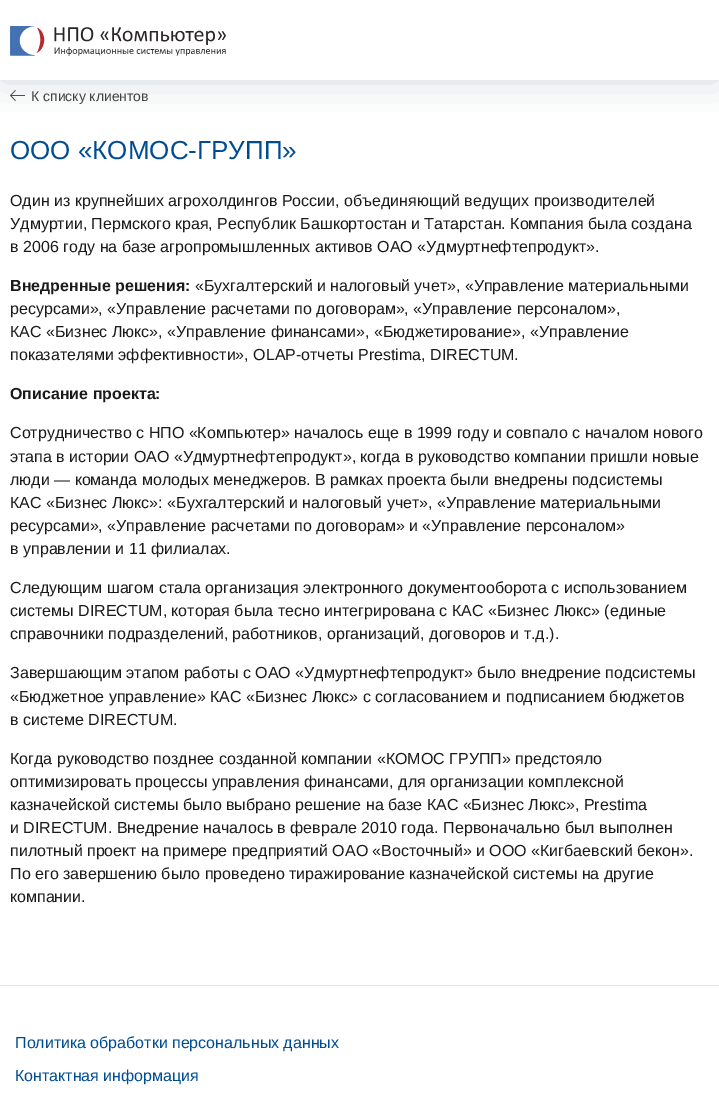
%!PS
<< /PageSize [719 1108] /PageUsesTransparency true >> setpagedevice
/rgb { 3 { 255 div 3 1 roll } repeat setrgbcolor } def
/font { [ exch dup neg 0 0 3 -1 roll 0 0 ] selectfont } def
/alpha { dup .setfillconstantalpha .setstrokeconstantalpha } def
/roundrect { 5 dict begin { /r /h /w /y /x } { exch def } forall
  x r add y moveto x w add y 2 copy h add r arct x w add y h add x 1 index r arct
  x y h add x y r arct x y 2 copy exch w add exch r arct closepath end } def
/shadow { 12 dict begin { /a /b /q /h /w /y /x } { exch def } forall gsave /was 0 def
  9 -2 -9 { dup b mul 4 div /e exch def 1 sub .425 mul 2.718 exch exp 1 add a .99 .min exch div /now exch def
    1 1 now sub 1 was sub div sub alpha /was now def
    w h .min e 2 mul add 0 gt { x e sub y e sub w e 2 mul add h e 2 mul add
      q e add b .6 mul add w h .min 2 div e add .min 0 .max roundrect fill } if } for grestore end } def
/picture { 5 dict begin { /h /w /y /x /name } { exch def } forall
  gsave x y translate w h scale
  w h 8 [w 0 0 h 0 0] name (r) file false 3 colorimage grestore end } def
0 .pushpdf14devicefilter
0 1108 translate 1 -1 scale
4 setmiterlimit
255 255 255 rgb
0 0 719 1108 rectfill
(img/2.rgb) 10 90 15 11 picture
gsave
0 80 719 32 rectclip
158 169 177 rgb
0 0 719 80 0 19 0.45 shadow
grestore
(img/1.rgb) 10 26 216 30 picture
226 226 230 rgb
0 985 719 1 rectfill
/LiberationSans-Regular 14 font
65 65 65 rgb
31 101 moveto (К списку клиентов) show
/LiberationSans-Regular 26 font
0 76 147 rgb
10 159 moveto (ООО «КОМОС-ГРУПП») show
/LiberationSans-Regular 16 font
26 26 26 rgb
[
  [(Один из крупнейших агрохолдингов России, объединяющий ведущих производителей) 10 206]
  [(Удмуртии, Пермского края, Республик Башкортостан и Татарстан. Компания была создана) 10 229]
  [(в 2006 году на базе агропромышленных активов ОАО «Удмуртнефтепродукт».) 10 252]
] { aload pop moveto show } forall
/LiberationSans-Bold 16 font
10 291 moveto (Внедренные решения:) show
/LiberationSans-Regular 16 font
[
  [(«Бухгалтерский и налоговый учет», «Управление материальными) 195 291]
  [(ресурсами», «Управление расчетами по договорам», «Управление персоналом»,) 10 314]
  [(КАС «Бизнес Люкс», «Управление финансами», «Бюджетирование», «Управление) 10 337]
  [(показателями эффективности», OLAP-отчеты Prestima, DIRECTUM.) 10 360]
] { aload pop moveto show } forall
/LiberationSans-Bold 16 font
10 399 moveto (Описание проекта:) show
/LiberationSans-Regular 16 font
[
  [(Сотрудничество с НПО «Компьютер» началось еще в 1999 году и совпало с началом нового) 10 438]
  [(этапа в истории ОАО «Удмуртнефтепродукт», когда в руководство компании пришли новые) 10 462]
  [(люди — команда молодых менеджеров. В рамках проекта были внедрены подсистемы) 10 485]
  [(КАС «Бизнес Люкс»: «Бухгалтерский и налоговый учет», «Управление материальными) 10 508]
  [(ресурсами», «Управление расчетами по договорам» и «Управление персоналом») 10 531]
  [(в управлении и 11 филиалах.) 10 554]
  [(Следующим шагом стала организация электронного документооборота с использованием) 10 593]
  [(системы DIRECTUM, которая была тесно интегрирована с КАС «Бизнес Люкс» \(единые) 10 616]
  [(справочники подразделений, работников, организаций, договоров и т.д.\).) 10 639]
  [(Завершающим этапом работы с ОАО «Удмуртнефтепродукт» было внедрение подсистемы) 10 678]
  [(«Бюджетное управление» КАС «Бизнес Люкс» с согласованием и подписанием бюджетов) 10 702]
  [(в системе DIRECTUM.) 10 725]
  [(Когда руководство позднее созданной компании «КОМОС ГРУПП» предстояло) 10 764]
  [(оптимизировать процессы управления финансами, для организации комплексной) 10 787]
  [(казначейской системы было выбрано решение на базе КАС «Бизнес Люкс», Prestima) 10 810]
  [(и DIRECTUM. Внедрение началось в феврале 2010 года. Первоначально был выполнен) 10 833]
  [(пилотный проект на примере предприятий ОАО «Восточный» и ООО «Кигбаевский бекон».) 10 856]
  [(По его завершению было проведено тиражирование казначейской системы на другие) 10 879]
  [(компании.) 10 902]
] { aload pop moveto show } forall
0 76 147 rgb
15 1048 moveto (Политика обработки персональных данных) show
15 1081 moveto (Контактная информация) show
.poppdf14devicefilter showpage
